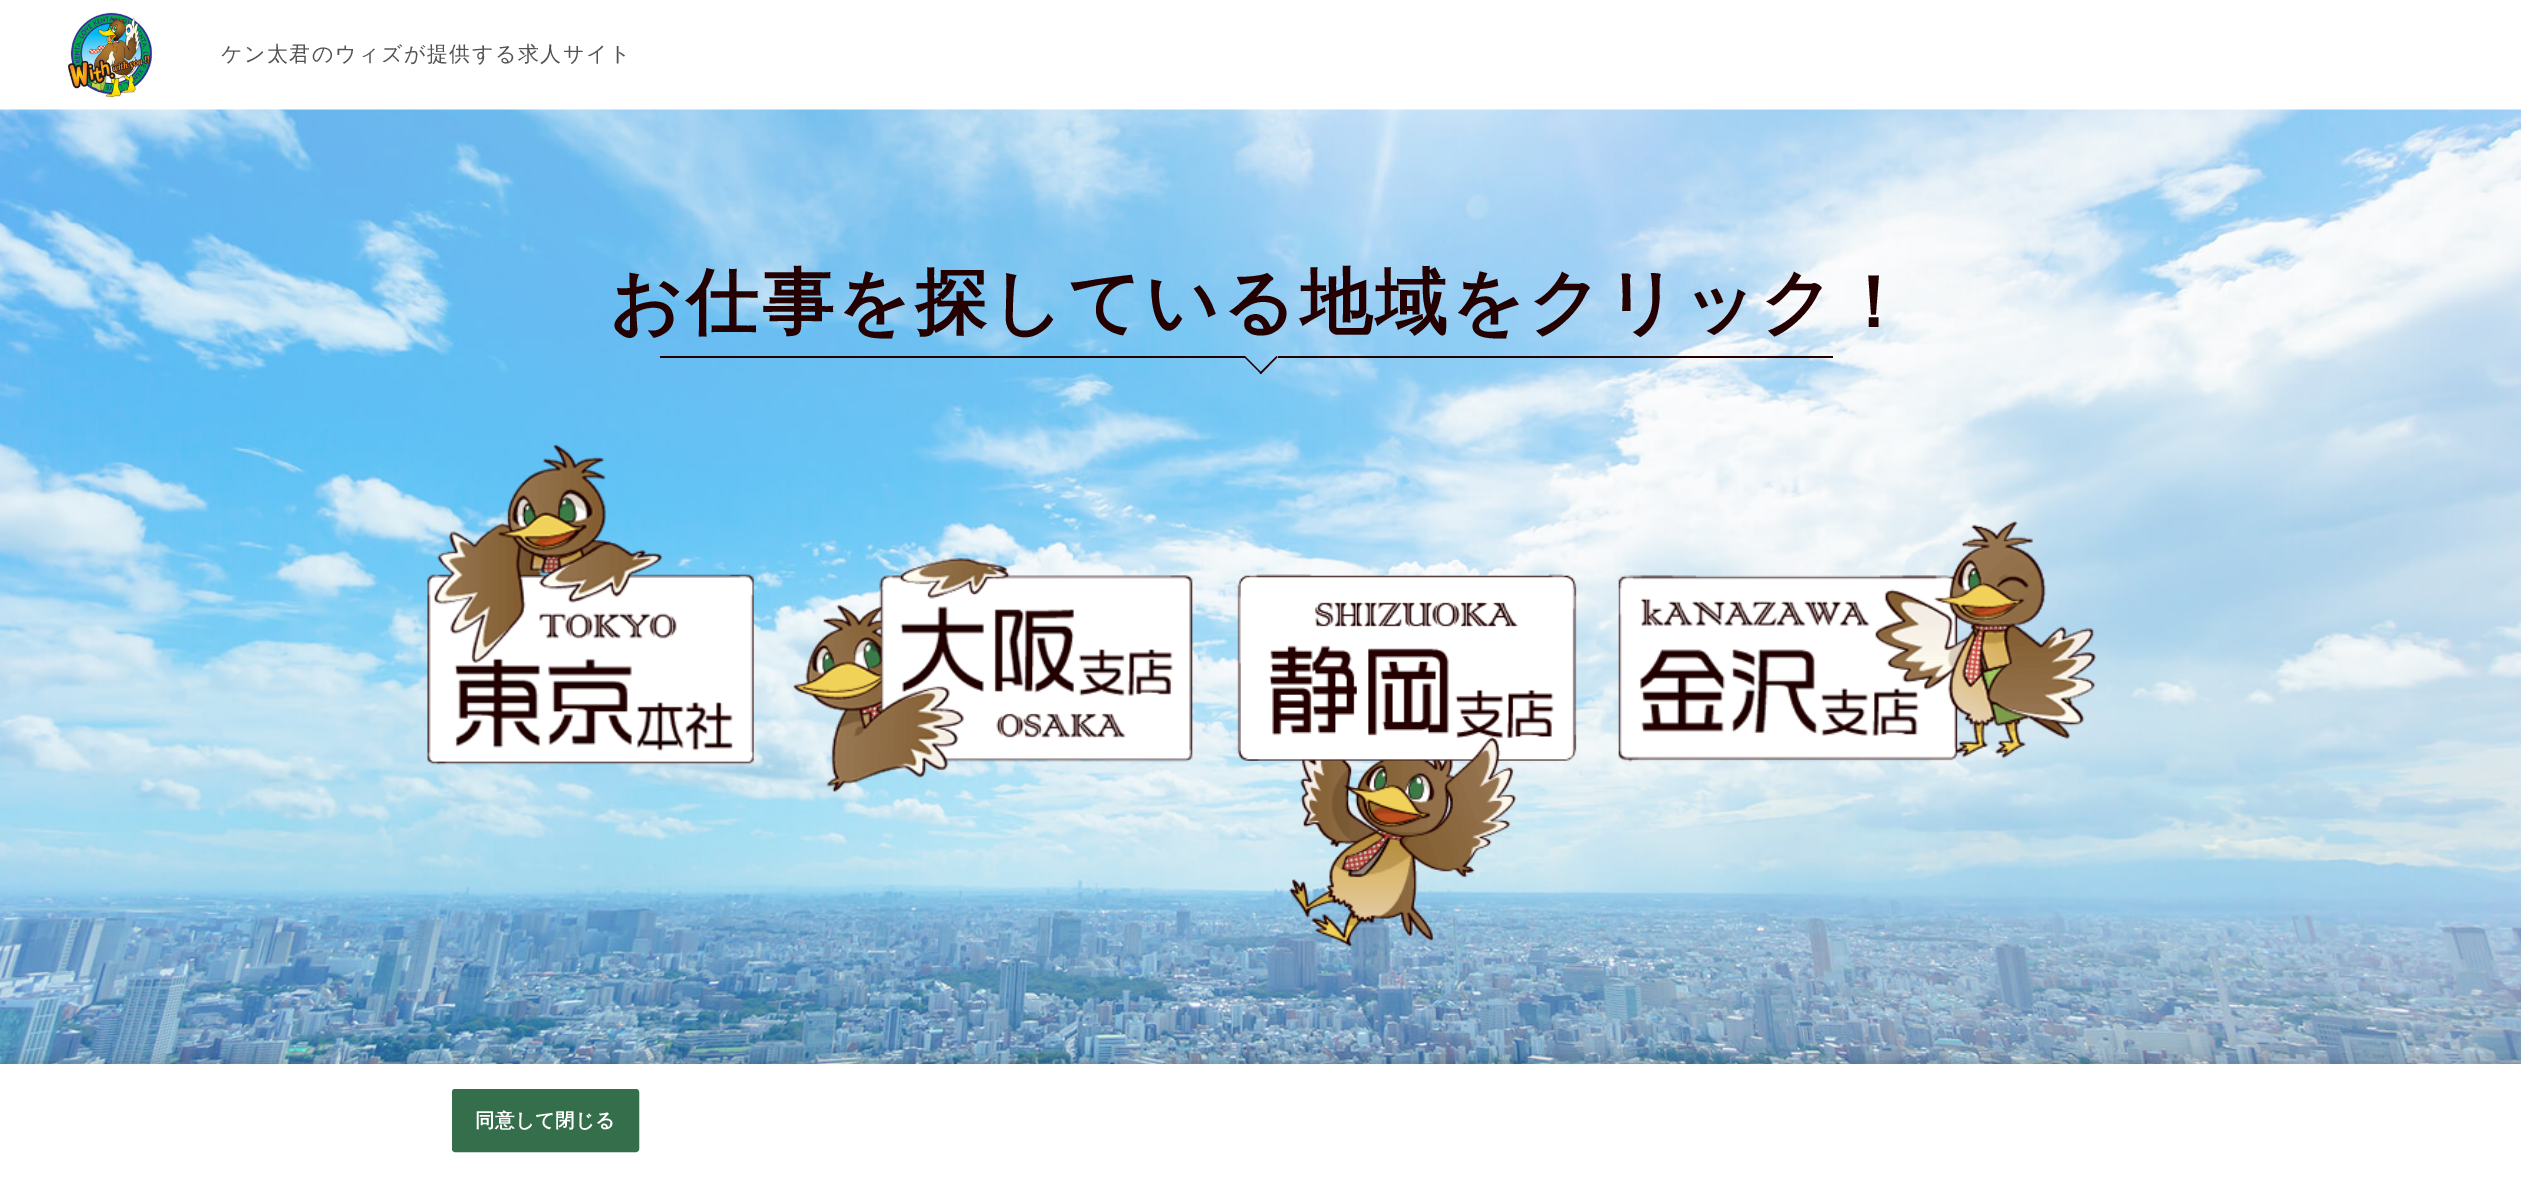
%!PS
<< /PageSize [2521 1197] /PageUsesTransparency true >> setpagedevice
/rgb { 3 { 255 div 3 1 roll } repeat setrgbcolor } def
/font { [ exch dup neg 0 0 3 -1 roll 0 0 ] selectfont } def
/alpha { dup .setfillconstantalpha .setstrokeconstantalpha } def
/roundrect { 5 dict begin { /r /h /w /y /x } { exch def } forall
  x r add y moveto x w add y 2 copy h add r arct x w add y h add x 1 index r arct
  x y h add x y r arct x y 2 copy exch w add exch r arct closepath end } def
/shadow { 12 dict begin { /a /b /q /h /w /y /x } { exch def } forall gsave /was 0 def
  9 -2 -9 { dup b mul 4 div /e exch def 1 sub .425 mul 2.718 exch exp 1 add a .99 .min exch div /now exch def
    1 1 now sub 1 was sub div sub alpha /was now def
    w h .min e 2 mul add 0 gt { x e sub y e sub w e 2 mul add h e 2 mul add
      q e add b .6 mul add w h .min 2 div e add .min 0 .max roundrect fill } if } for grestore end } def
/picture { 5 dict begin { /h /w /y /x /name } { exch def } forall
  gsave x y translate w h scale
  w h 8 [w 0 0 h 0 0] name (r) file false 3 colorimage grestore end } def
0 .pushpdf14devicefilter
0 1197 translate 1 -1 scale
4 setmiterlimit
255 255 255 rgb
0 0 2521 1197 rectfill
(img/1.rgb) 68 12 85 86 picture
(img/2.rgb) 0 109 2521 955 picture
36 0 0 rgb
660 356 585 2 rectfill
1277.5 357 moveto 1261 374 lineto 1259.5 373 lineto 1276.5 356 lineto closepath fill
1262 373 moveto 1261 374 lineto 1244 357 lineto 1245 356 lineto closepath fill
1278 356 555 2 rectfill
(img/3.rgb) 427 445 327 320 picture
(img/4.rgb) 793 558 400 234 picture
(img/5.rgb) 1237 574 340 374 picture
(img/6.rgb) 1618 521 478 241 picture
0 0 0 rgb
0 1064 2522 133 0 13.5 0.2 shadow
255 255 255 rgb
0 1064 2521 133 rectfill
52 110 74 rgb
453 1090 185 61 2 roundrect gsave fill grestore
2 setlinewidth
stroke
/WenQuanYiZenHei-Medium 21 font
82 82 82 rgb
221 61 moveto 1.5 0 (ケン太君のウィズが提供する求人サイト) ashow
/WenQuanYiZenHei-Bold 72 font
36 0 0 rgb
609 327 moveto 3.6 0 (お仕事を探している地域をクリック！) ashow
/WenQuanYiZenHei-Bold 19.5 font
255 255 255 rgb
475 1127 moveto 0.25 0 (同意して閉じる) ashow
.poppdf14devicefilter showpage
